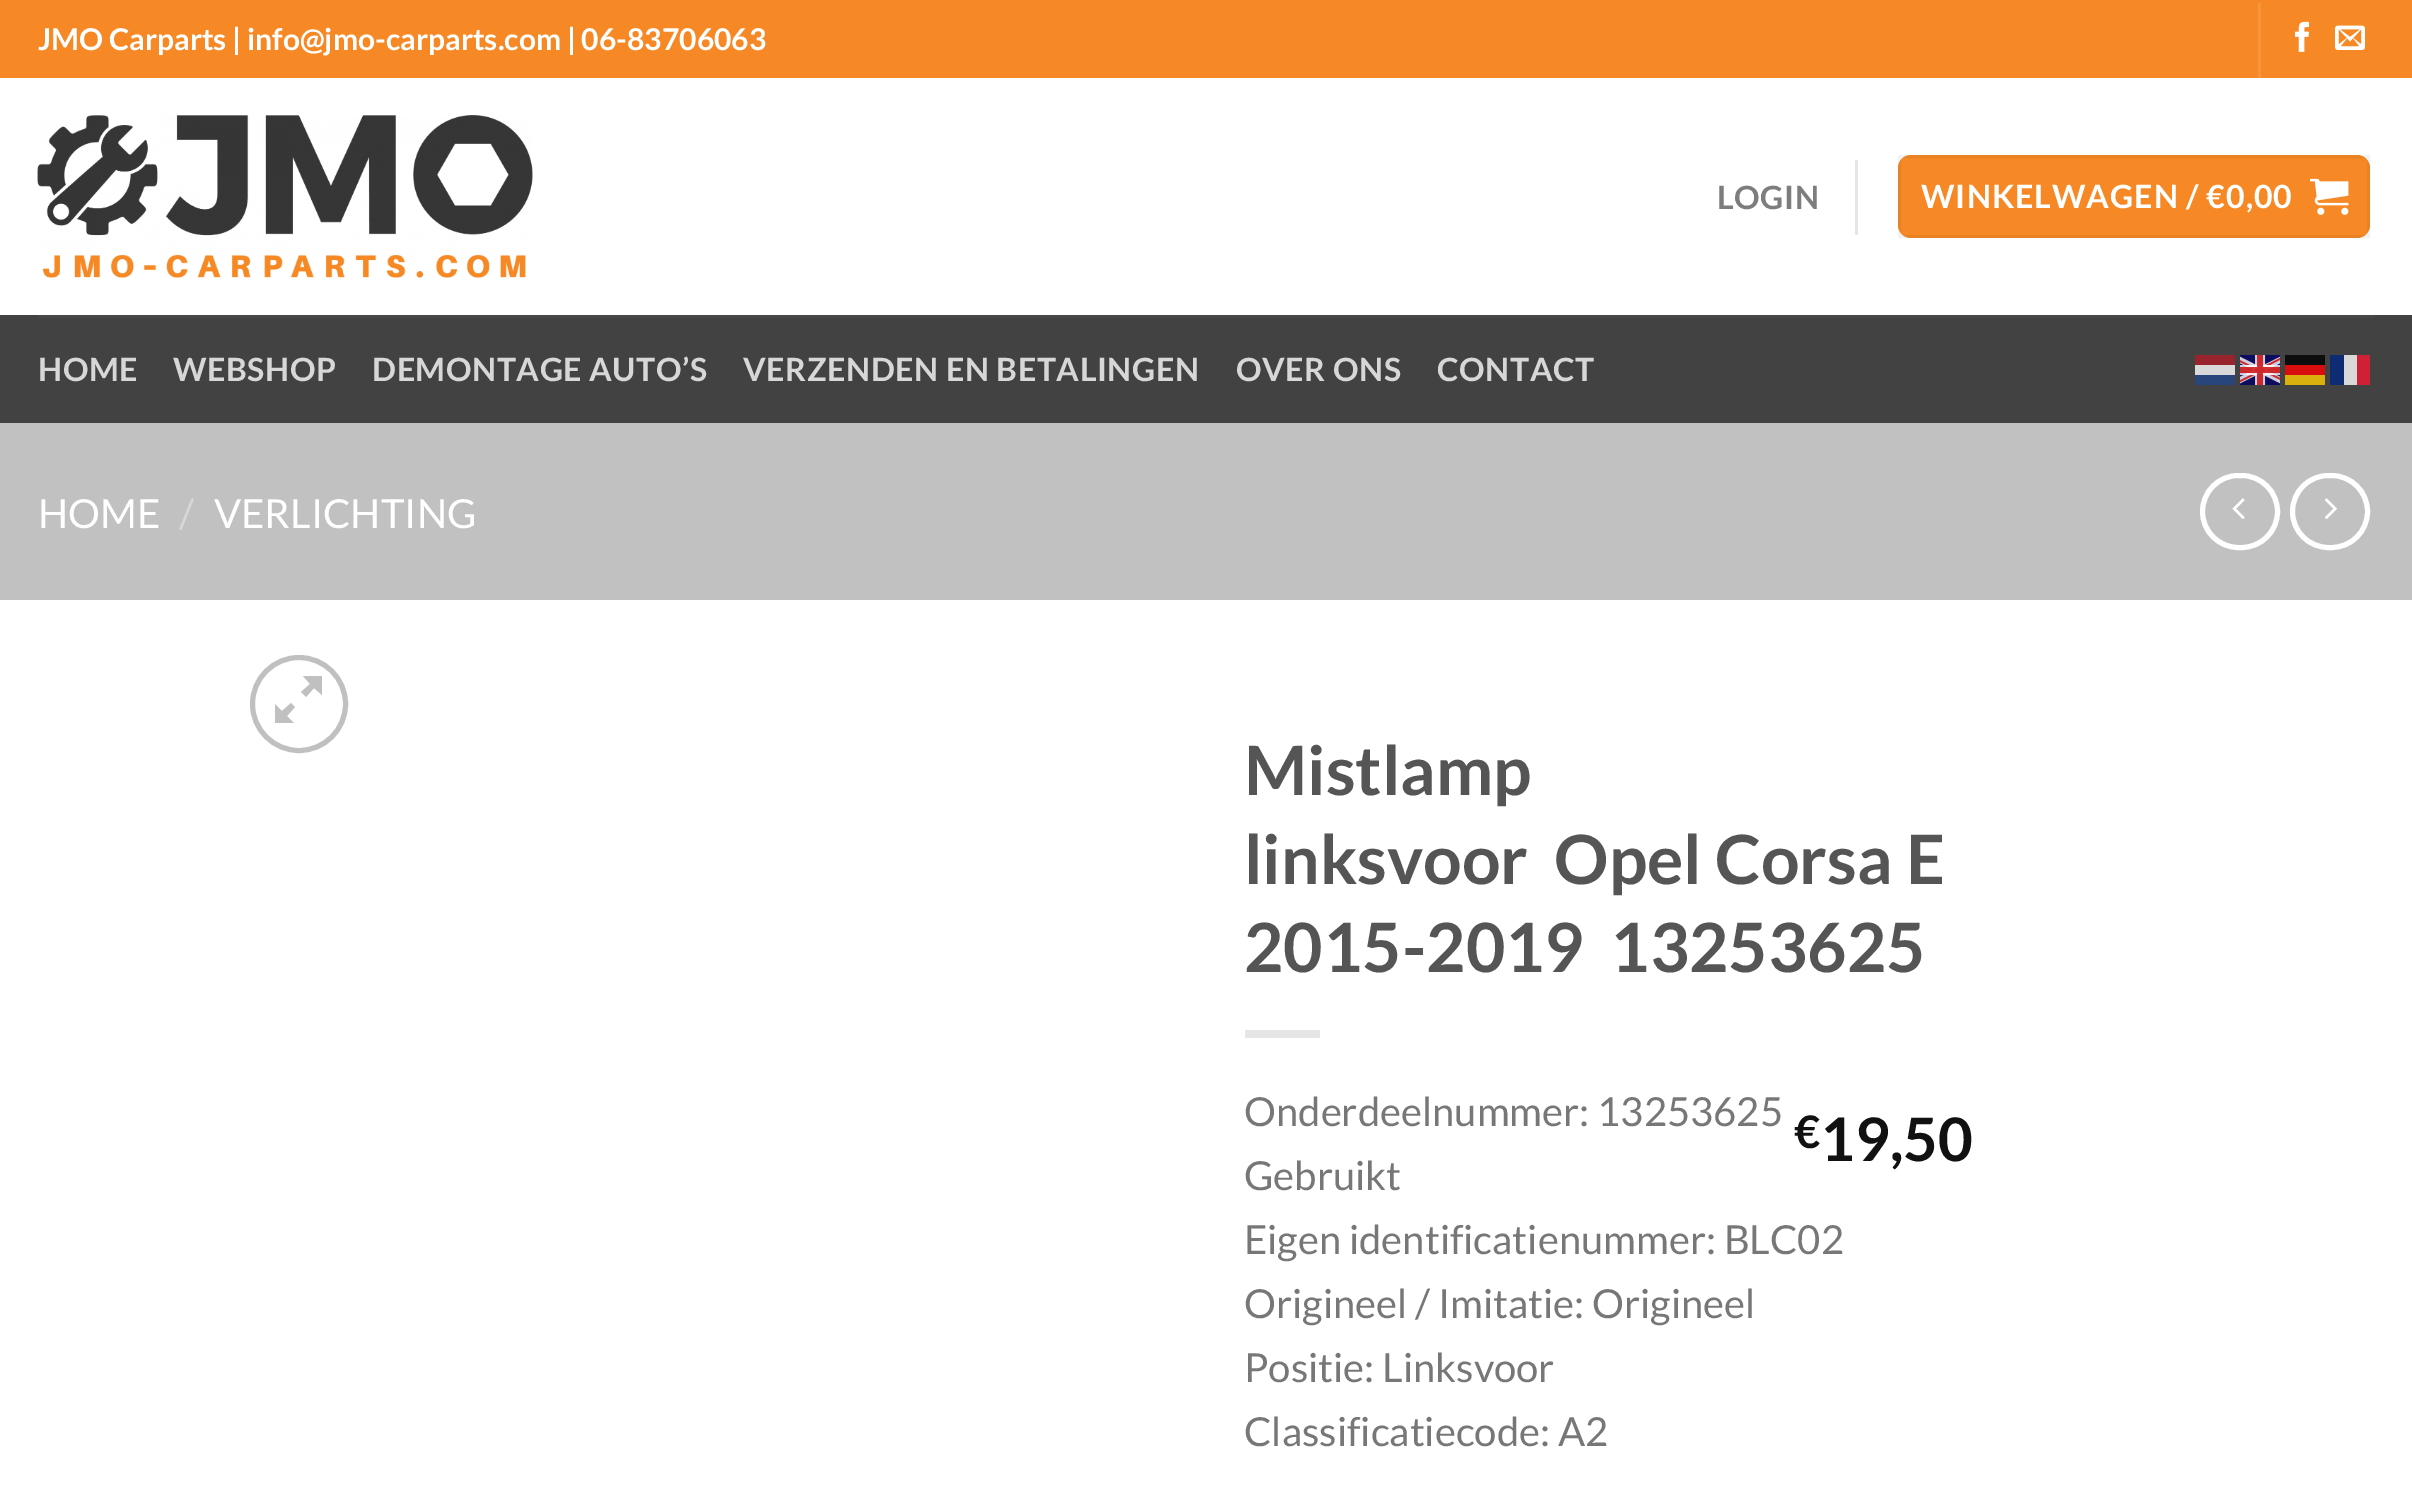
%!PS
<< /PageSize [2412 1500] /PageUsesTransparency true >> setpagedevice
/rgb { 3 { 255 div 3 1 roll } repeat setrgbcolor } def
/font { [ exch dup neg 0 0 3 -1 roll 0 0 ] selectfont } def
/alpha { dup .setfillconstantalpha .setstrokeconstantalpha } def
/circle { newpath 0 360 arc closepath } def
/roundrect { 5 dict begin { /r /h /w /y /x } { exch def } forall
  x r add y moveto x w add y 2 copy h add r arct x w add y h add x 1 index r arct
  x y h add x y r arct x y 2 copy exch w add exch r arct closepath end } def
/picture { 5 dict begin { /h /w /y /x /name } { exch def } forall
  gsave x y translate w h scale
  w h 8 [w 0 0 h 0 0] name (r) file false 3 colorimage grestore end } def
0 .pushpdf14devicefilter
0 1500 translate 1 -1 scale
4 setmiterlimit
255 255 255 rgb
0 0 2412 1500 rectfill
246 137 37 rgb
0 0 2412 78 rectfill
247 149 59 rgb
2258 3 3 75 rectfill
(img/1.rgb) 2295 21 14 31 picture
(img/2.rgb) 2335 25 30 25 picture
(img/3.rgb) 37 115 496 163 picture
230 230 230 rgb
1855 160 3 75 rectfill
246 137 37 rgb
1898 155 472 83 13 roundrect fill
0.05 alpha
0 0 0 rgb
3 setlinewidth
1899.5 156.5 469 80 rectstroke
1 alpha
(img/4.rgb) 2310 178 39 37 picture
[
  [0 315 2412 108 66 66 66]
  [38 315 2337 3 71 71 71]
  [2195 355 40 10 152 36 45]
] { aload pop rgb rectfill } forall
(img/5.rgb) 2240 355 40 30 picture
[
  [2285 355 40 10 13 13 13]
  [2330 355 14 30 13 44 115]
  [2344 355 13 30 217 217 217]
  [2357 355 13 30 208 32 52]
  [2195 365 40 10 217 217 217]
  [2285 365 40 10 217 13 13]
  [2195 375 40 10 40 69 124]
  [2285 375 40 10 217 176 13]
  [0 423 2412 177 193 193 193]
] { aload pop rgb rectfill } forall
255 255 255 rgb
5 setlinewidth
2202.5 475.5 75 72 36 roundrect stroke
(img/6.rgb) 2232 498 13 21 picture
2292.5 475.5 75 72 36 roundrect stroke
(img/7.rgb) 2325 498 12 21 picture
192 192 192 rgb
299 704 46.5 circle stroke
322 676 moveto 322 695 lineto 314 688 lineto 306 697 lineto 301 692 lineto 310 684 lineto 303 676 lineto closepath 295 707 moveto 287 716 lineto 294 723 lineto 275 723 lineto 275 704 lineto 282 711 lineto 291 703 lineto closepath fill
230 230 230 rgb
1245 1030 75 8 rectfill
/Lato-Bold 30 font
255 255 255 rgb
38 50 moveto (JMO Carparts | info@jmo-carparts.com | 06-83706063) show
/Lato-Bold 32 font
125 125 125 rgb
1717 209 moveto 0.6 0 (LOGIN) ashow
255 255 255 rgb
1921 208 moveto 1 0 (WINKELWAGEN / €0,00) ashow
215 215 215 rgb
38 381 moveto 0.6 0 (HOME) ashow
173 381 moveto 0.6 0 (WEBSHOP) ashow
372 381 moveto 0.6 0 (DEMONTAGE AUTO’S) ashow
743 381 moveto 0.6 0 (VERZENDEN EN BETALINGEN) ashow
1236 381 moveto 0.6 0 (OVER ONS) ashow
1437 381 moveto 0.6 0 (CONTACT) ashow
/Lato-Regular 40 font
255 255 255 rgb
38 528 moveto (HOME) show
215 215 215 rgb
179 528 moveto (/) show
255 255 255 rgb
214 528 moveto (VERLICHTING) show
/Lato-Bold 68 font
85 85 85 rgb
[
  [(Mistlamp) 1244 795]
  [(linksvoor  Opel Corsa E) 1244 884]
  [(2015-2019  13253625) 1244 972]
] { aload pop moveto show } forall
/Lato-Regular 40 font
119 119 119 rgb
[
  [(Onderdeelnummer: 13253625) 1244 1126]
  [(Gebruikt) 1244 1190]
  [(Eigen identificatienummer: BLC02) 1244 1254]
  [(Origineel / Imitatie: Origineel) 1244 1318]
  [(Positie: Linksvoor) 1244 1382]
  [(Classificatiecode: A2) 1244 1446]
] { aload pop moveto show } forall
/Lato-Bold 45 font
17 17 17 rgb
1794 1148 moveto (€) show
/Lato-Bold 60 font
1820 1161 moveto (19,50) show
.poppdf14devicefilter showpage
